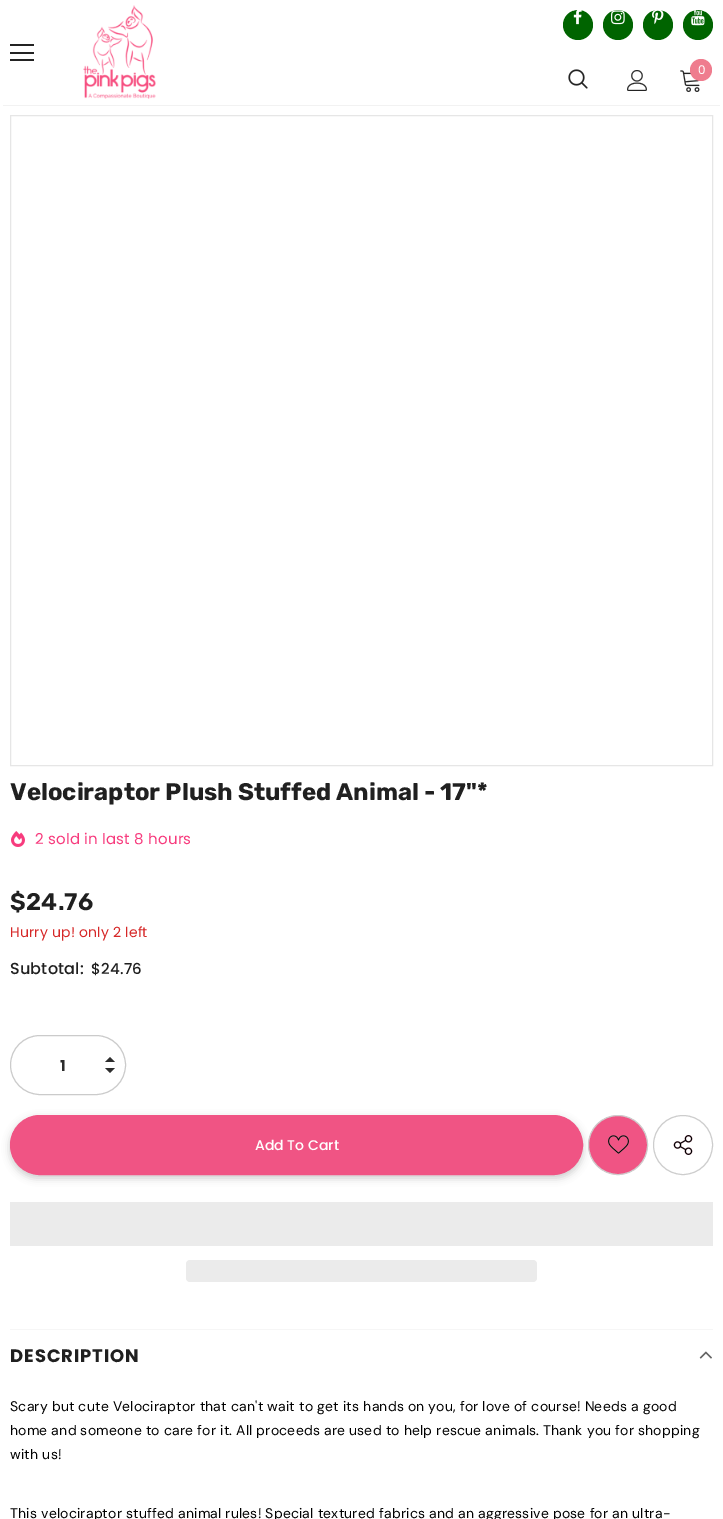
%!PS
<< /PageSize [723 1519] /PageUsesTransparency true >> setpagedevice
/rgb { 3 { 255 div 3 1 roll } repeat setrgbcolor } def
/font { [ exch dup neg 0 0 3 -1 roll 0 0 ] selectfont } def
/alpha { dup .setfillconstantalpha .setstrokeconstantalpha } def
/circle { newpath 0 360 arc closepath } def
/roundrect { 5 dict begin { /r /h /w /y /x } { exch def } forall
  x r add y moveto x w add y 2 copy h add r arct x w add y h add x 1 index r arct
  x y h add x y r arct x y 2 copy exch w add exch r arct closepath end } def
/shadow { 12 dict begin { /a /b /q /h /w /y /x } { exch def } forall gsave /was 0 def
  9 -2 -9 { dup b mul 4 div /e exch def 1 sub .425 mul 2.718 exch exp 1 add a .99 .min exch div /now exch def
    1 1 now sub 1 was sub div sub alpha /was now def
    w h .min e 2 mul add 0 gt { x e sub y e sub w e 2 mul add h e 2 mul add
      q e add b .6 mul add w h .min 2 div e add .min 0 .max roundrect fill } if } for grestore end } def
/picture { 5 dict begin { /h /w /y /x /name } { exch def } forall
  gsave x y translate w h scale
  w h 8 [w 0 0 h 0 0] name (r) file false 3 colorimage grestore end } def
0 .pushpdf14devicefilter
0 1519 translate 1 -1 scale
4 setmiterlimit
255 255 255 rgb
0 0 723 1519 rectfill
gsave
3 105 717 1 rectclip
0 0 0 rgb
3 6 717 99 0 1.5 0.12 shadow
grestore
[
  [10 44 24 2 35 35 35]
  [10 52 24 2 35 35 35]
  [10 59 24 2 35 35 35]
] { aload pop rgb rectfill } forall
(img/1.rgb) 83 5 73 94 picture
0 100 0 rgb
578 25 15 circle fill
(img/2.rgb) 573 10 9 15 picture
618 25 15 circle fill
(img/3.rgb) 611 10 14 15 picture
658 25 15 circle fill
(img/4.rgb) 652 10 12 15 picture
698 25 15 circle fill
(img/5.rgb) 691 10 14 16 picture
(img/6.rgb) 568 69 20 20 picture
(img/7.rgb) 627 70 20 21 picture
(img/8.rgb) 680 70 20 22 picture
239 124 142 rgb
701 70 11 circle fill
230 230 230 rgb
10.5 115.5 702 650 rectstroke
(img/9.rgb) 11 831 14 16 picture
203 203 203 rgb
10.5 1035.5 115 59 29.5 roundrect stroke
45 45 45 rgb
105 1068 moveto 115 1068 lineto 110 1073 lineto closepath 115 1062 moveto 105 1062 lineto 110 1057 lineto closepath fill
0 0 0 rgb
10 1118 573 60 30 4 0.2 shadow
240 84 132 rgb
10.5 1115.5 572 59 29.5 roundrect gsave fill grestore
stroke
618 1145 29.5 circle gsave fill grestore
205 205 205 rgb
stroke
(img/10.rgb) 608 1135 21 19 picture
683 1145 29.5 circle stroke
(img/11.rgb) 673 1135 20 20 picture
235 235 235 rgb
10 1202 703 44 rectfill
186 1260 351 22 4 roundrect fill
246 246 246 rgb
10 1329 703 1 rectfill
(img/12.rgb) 699 1351 13 8 picture
/Poppins-Regular 12 font
255 255 255 rgb
698 74 moveto (0) show
/Rubik-Bold 24 font
32 32 32 rgb
10 800 moveto (Velociraptor Plush Stuffed Animal - 17"*) show
/Poppins-Regular 15 font
247 59 125 rgb
35 844 moveto 0.2 0 (2 sold in last 8 hours) ashow
/Rubik-SemiBold 24 font
32 32 32 rgb
10 910 moveto 0.2 0 ($24.76) ashow
/Poppins-Regular 14 font
214 40 40 rgb
10 937 moveto 0.2 0 (Hurry up! only 2 left) ashow
/Poppins-Medium 16 font
32 32 32 rgb
10 974 moveto 0.2 0 (Subtotal:) ashow
/Poppins-Medium 15 font
91 974 moveto 0.2 0 ($24.76) ashow
/Poppins-Bold 15 font
45 45 45 rgb
60 1071 moveto (1) show
/Poppins-Medium 14 font
255 255 255 rgb
255 1150 moveto (Add To Cart) show
/Poppins-Bold 18 font
32 32 32 rgb
10 1362 moveto 0.9 0 (DESCRIPTION) ashow
/DMSans-Regular 14 font
0 0 0 rgb
10 1411 moveto 0.2 0 (Scary but cute Velociraptor that can't wait to get its hands on you, for love of course! Needs a good) ashow
10 1435 moveto 0.2 0 (home and someone to care for it. All proceeds are used to help rescue animals. Thank you for shopping) ashow
10 1459 moveto 0.2 0 (with us!) ashow
10 1518 moveto 0.2 0 (This velociraptor stuffed animal rules! Special textured fabrics and an aggressive pose for an ultra-) ashow
.poppdf14devicefilter showpage
